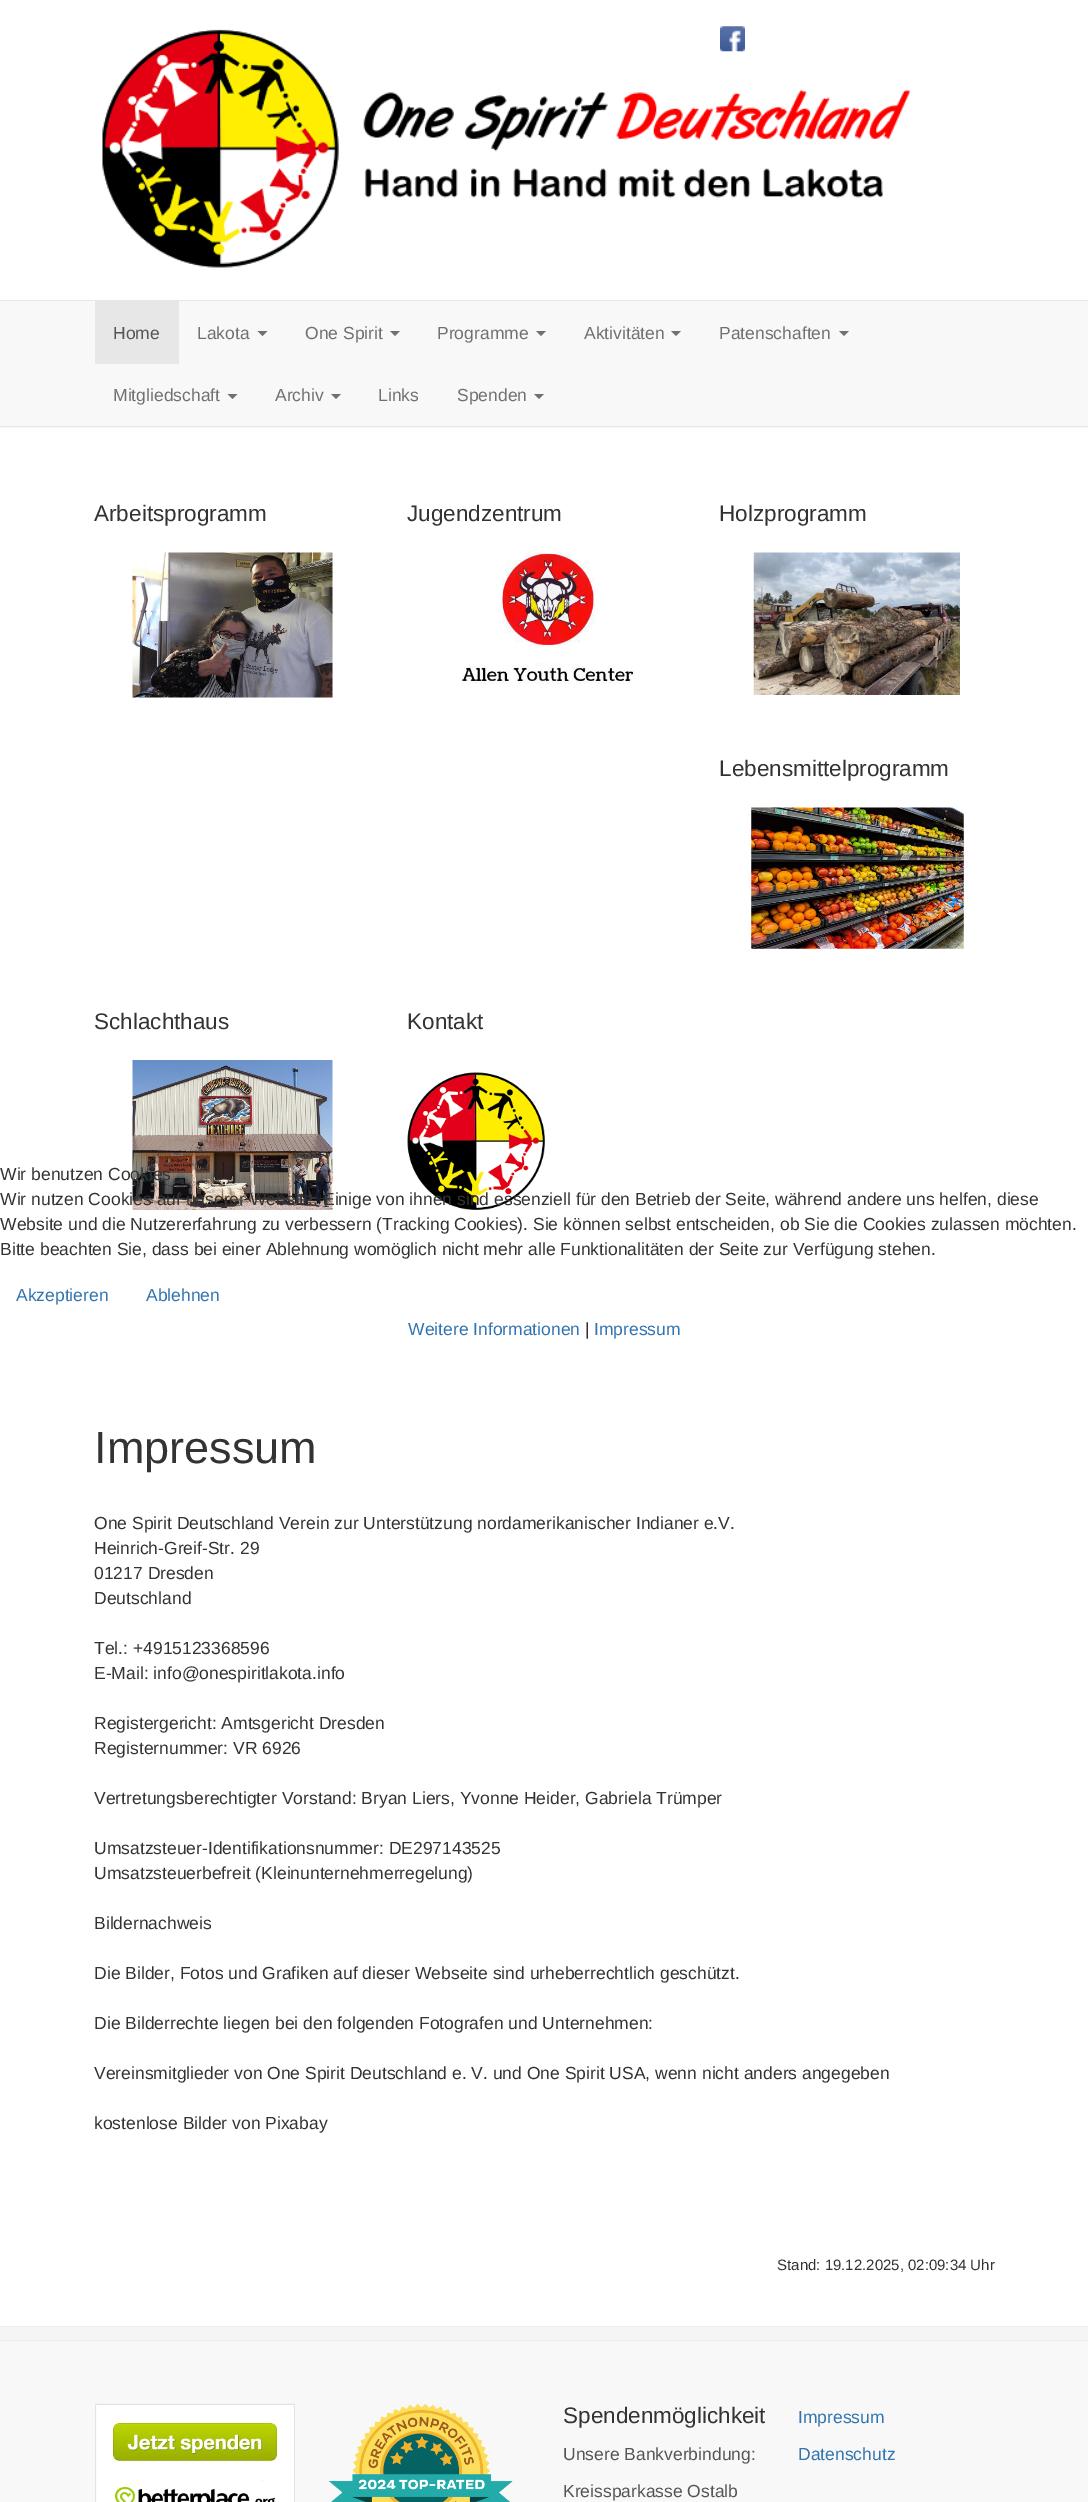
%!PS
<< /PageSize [1088 2502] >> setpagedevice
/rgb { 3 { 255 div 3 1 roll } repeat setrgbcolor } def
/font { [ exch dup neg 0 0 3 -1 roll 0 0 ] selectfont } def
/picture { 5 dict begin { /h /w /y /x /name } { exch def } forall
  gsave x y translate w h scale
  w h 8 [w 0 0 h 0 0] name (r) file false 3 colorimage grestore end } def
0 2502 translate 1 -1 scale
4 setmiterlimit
255 255 255 rgb
0 0 1088 2502 rectfill
(img/2.rgb) 102 29 809 239 picture
(img/1.rgb) 720 26 25 26 picture
[
  [0 301 1088 127 248 248 248]
  [0 300 1088 1 231 231 231]
  [0 426 1088 1 231 231 231]
  [95 301 84 63 231 231 231]
] { aload pop rgb rectfill } forall
112 112 112 rgb
257.5 331 moveto 267.5 331 lineto 262.5 336 lineto closepath fill
390 331 moveto 400 331 lineto 395 336 lineto closepath fill
536 331 moveto 546 331 lineto 541 336 lineto closepath fill
671 331 moveto 681 331 lineto 676 336 lineto closepath fill
839 331 moveto 849 331 lineto 844 336 lineto closepath fill
227.5 394 moveto 237.5 394 lineto 232.5 399 lineto closepath fill
331 394 moveto 341 394 lineto 336 399 lineto closepath fill
534 394 moveto 544 394 lineto 539 399 lineto closepath fill
(img/3.rgb) 132 552 201 146 picture
(img/4.rgb) 461 552 174 132 picture
(img/5.rgb) 753 552 207 143 picture
(img/6.rgb) 751 807 213 142 picture
(img/7.rgb) 132 1060 201 150 picture
(img/8.rgb) 407 1072 138 138 picture
[
  [0 2327 1088 13 245 245 245]
  [0 2326 1088 1 238 238 238]
  [0 2341 1088 161 248 248 248]
  [0 2340 1088 1 238 238 238]
] { aload pop rgb rectfill } forall
(img/9.rgb) 95 2403 200 99 picture
(img/10.rgb) 328 2403 185 99 picture
/LiberationSans-Regular 17.5 font
85 85 85 rgb
113 339 moveto (Home) show
112 112 112 rgb
[
  [(Lakota) 197 339]
  [(One Spirit) 305 339]
  [(Programme) 437 339]
  [(Aktivitäten) 584 339]
  [(Patenschaften) 719 339]
  [(Mitgliedschaft) 113 401]
  [(Archiv) 275 401]
  [(Links) 378 401]
  [(Spenden) 457 401]
] { aload pop moveto show } forall
/LiberationSans-Regular 22.5 font
51 51 51 rgb
[
  [(Arbeitsprogramm) 94 521]
  [(Jugendzentrum) 407 521]
  [(Holzprogramm) 719 521]
  [(Lebensmittelprogramm) 719 776]
  [(Schlachthaus) 94 1029]
  [(Kontakt) 407 1029]
] { aload pop moveto show } forall
/LiberationSans-Regular 45 font
94 1463 moveto (Impressum) show
/LiberationSans-Regular 17.5 font
[
  [(One Spirit Deutschland Verein zur Unterstützung nordamerikanischer Indianer e.V.) 94 1529]
  [(Heinrich-Greif-Str. 29) 94 1554]
  [(01217 Dresden) 94 1579]
  [(Deutschland) 94 1604]
  [(Tel.: +4915123368596) 94 1654]
  [(E-Mail: info@onespiritlakota.info) 94 1679]
  [(Registergericht: Amtsgericht Dresden) 94 1729]
  [(Registernummer: VR 6926) 94 1754]
  [(Vertretungsberechtigter Vorstand: Bryan Liers, Yvonne Heider, Gabriela Trümper) 94 1804]
  [(Umsatzsteuer-Identifikationsnummer: DE297143525) 94 1854]
  [(Umsatzsteuerbefreit \(Kleinunternehmerregelung\)) 94 1879]
  [(Bildernachweis) 94 1929]
  [(Die Bilder, Fotos und Grafiken auf dieser Webseite sind urheberrechtlich geschützt.) 94 1979]
  [(Die Bilderrechte liegen bei den folgenden Fotografen und Unternehmen:) 94 2029]
  [(Vereinsmitglieder von One Spirit Deutschland e. V. und One Spirit USA, wenn nicht anders angegeben) 94 2079]
  [(kostenlose Bilder von Pixabay) 94 2129]
] { aload pop moveto show } forall
/LiberationSans-Regular 15 font
777 2270 moveto (Stand: 19.12.2025, 02:09:34 Uhr) show
/LiberationSans-Regular 22.5 font
563 2423 moveto (Spendenmöglichkeit) show
/LiberationSans-Regular 17.5 font
85 85 85 rgb
563 2460 moveto (Unsere Bankverbindung:) show
563 2497 moveto (Kreissparkasse Ostalb) show
49 116 175 rgb
798 2423 moveto (Impressum) show
798 2460 moveto (Datenschutz) show
51 51 51 rgb
[
  [(Wir benutzen Cookies) 0 1180]
  [(Wir nutzen Cookies auf unserer Website. Einige von ihnen sind essenziell für den Betrieb der Seite, während andere uns helfen, diese) 0 1205]
  [(Website und die Nutzererfahrung zu verbessern \(Tracking Cookies\). Sie können selbst entscheiden, ob Sie die Cookies zulassen möchten.) 0 1230]
  [(Bitte beachten Sie, dass bei einer Ablehnung womöglich nicht mehr alle Funktionalitäten der Seite zur Verfügung stehen.) 0 1255]
] { aload pop moveto show } forall
49 116 175 rgb
[
  [(Akzeptieren) 16 1301]
  [(Ablehnen) 146 1301]
  [(Weitere Informationen) 408 1335]
] { aload pop moveto show } forall
51 51 51 rgb
585 1335 moveto (|) show
49 116 175 rgb
594 1335 moveto (Impressum) show
showpage
